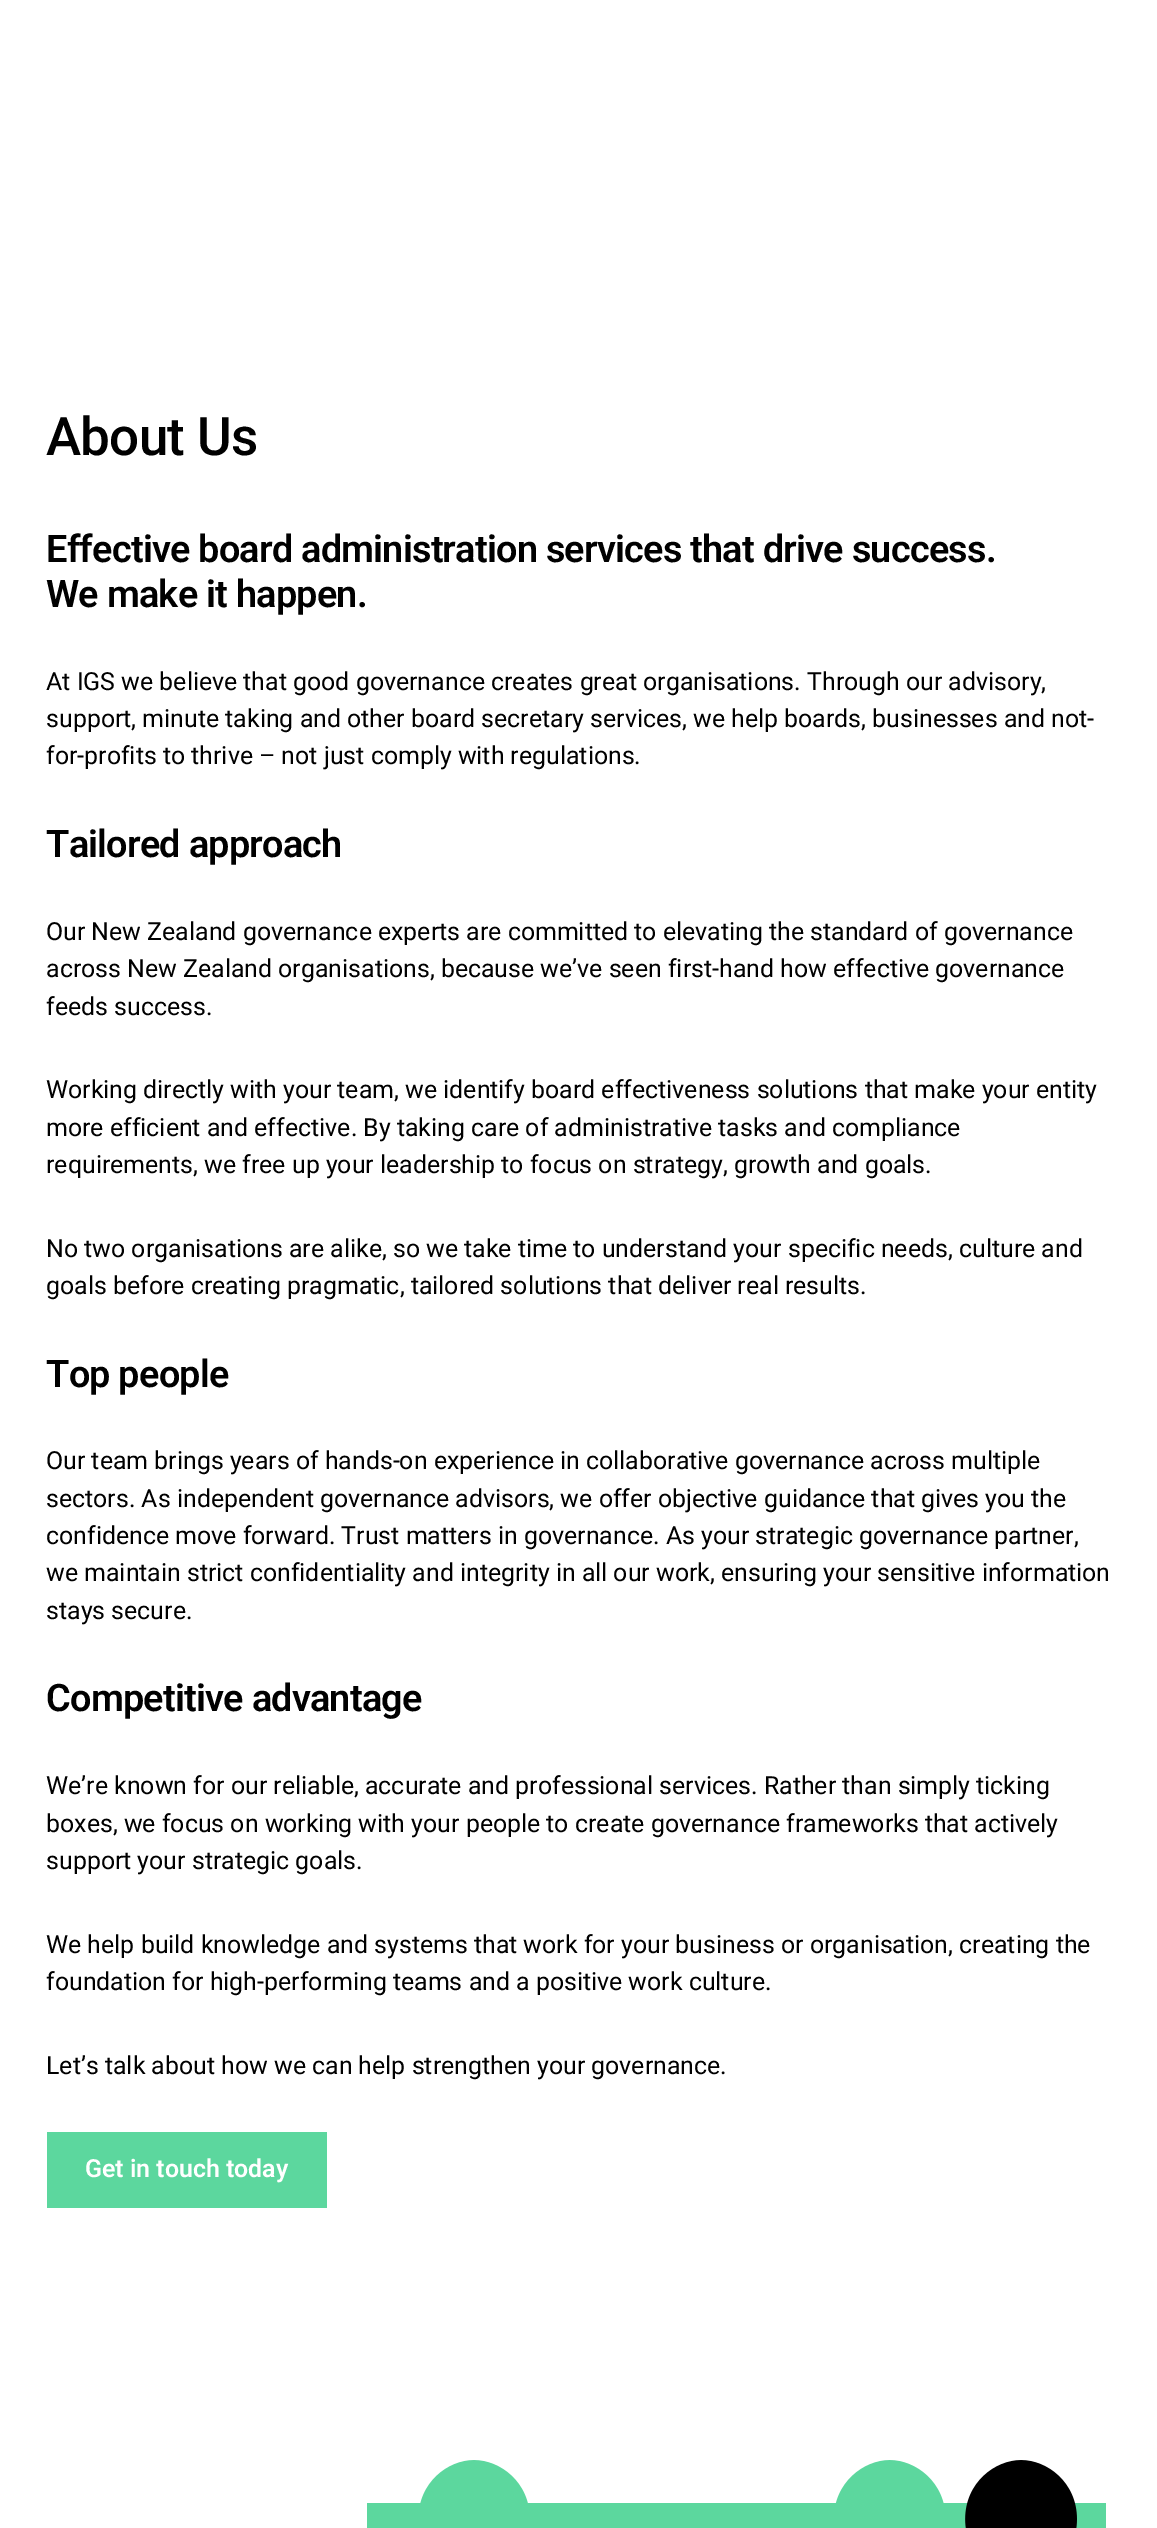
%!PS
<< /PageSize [1157 2528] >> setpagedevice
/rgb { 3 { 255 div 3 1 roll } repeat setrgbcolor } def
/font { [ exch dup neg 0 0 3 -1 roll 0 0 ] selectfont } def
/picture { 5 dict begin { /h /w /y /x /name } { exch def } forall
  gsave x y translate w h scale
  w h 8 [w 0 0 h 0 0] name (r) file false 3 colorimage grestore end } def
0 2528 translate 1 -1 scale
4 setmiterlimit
255 255 255 rgb
0 0 1157 2528 rectfill
92 215 158 rgb
47 2132 280 76 rectfill
(img/1.rgb) 367 2460 739 68 picture
/Roboto-Medium 53 font
0 0 0 rgb
46 455 moveto -0.75 0 (About Us) ashow
/Roboto-SemiBold 37.85 font
46 562 moveto -0.75 0 (Effective board administration services that drive success.) ashow
46 607 moveto -0.75 0 (We make it happen.) ashow
/Roboto-Regular 24.9 font
[
  [(At IGS we believe that good governance creates great organisations. Through our advisory,) 46 690]
  [(support, minute taking and other board secretary services, we help boards, businesses and not-) 46 727]
  [(for-profits to thrive – not just comply with regulations.) 46 764]
] { aload pop moveto show } forall
/Roboto-SemiBold 37.85 font
46 857 moveto -0.75 0 (Tailored approach) ashow
/Roboto-Regular 24.9 font
[
  [(Our New Zealand governance experts are committed to elevating the standard of governance) 46 940]
  [(across New Zealand organisations, because we’ve seen first-hand how effective governance) 46 977]
  [(feeds success.) 46 1015]
  [(Working directly with your team, we identify board effectiveness solutions that make your entity) 46 1098]
  [(more efficient and effective. By taking care of administrative tasks and compliance) 46 1136]
  [(requirements, we free up your leadership to focus on strategy, growth and goals.) 46 1173]
  [(No two organisations are alike, so we take time to understand your specific needs, culture and) 46 1257]
  [(goals before creating pragmatic, tailored solutions that deliver real results.) 46 1294]
] { aload pop moveto show } forall
/Roboto-SemiBold 37.85 font
46 1387 moveto -0.75 0 (Top people) ashow
/Roboto-Regular 24.9 font
[
  [(Our team brings years of hands-on experience in collaborative governance across multiple) 46 1469]
  [(sectors. As independent governance advisors, we offer objective guidance that gives you the) 46 1507]
  [(confidence move forward. Trust matters in governance. As your strategic governance partner,) 46 1544]
  [(we maintain strict confidentiality and integrity in all our work, ensuring your sensitive information) 46 1581]
  [(stays secure.) 46 1619]
] { aload pop moveto show } forall
/Roboto-SemiBold 37.85 font
46 1711 moveto -0.75 0 (Competitive advantage) ashow
/Roboto-Regular 24.9 font
[
  [(We’re known for our reliable, accurate and professional services. Rather than simply ticking) 46 1794]
  [(boxes, we focus on working with your people to create governance frameworks that actively) 46 1832]
  [(support your strategic goals.) 46 1869]
  [(We help build knowledge and systems that work for your business or organisation, creating the) 46 1953]
  [(foundation for high-performing teams and a positive work culture.) 46 1990]
  [(Let’s talk about how we can help strengthen your governance.) 46 2074]
] { aload pop moveto show } forall
/Roboto-SemiBold 24.9 font
255 255 255 rgb
85 2177 moveto (Get in touch today) show
showpage
